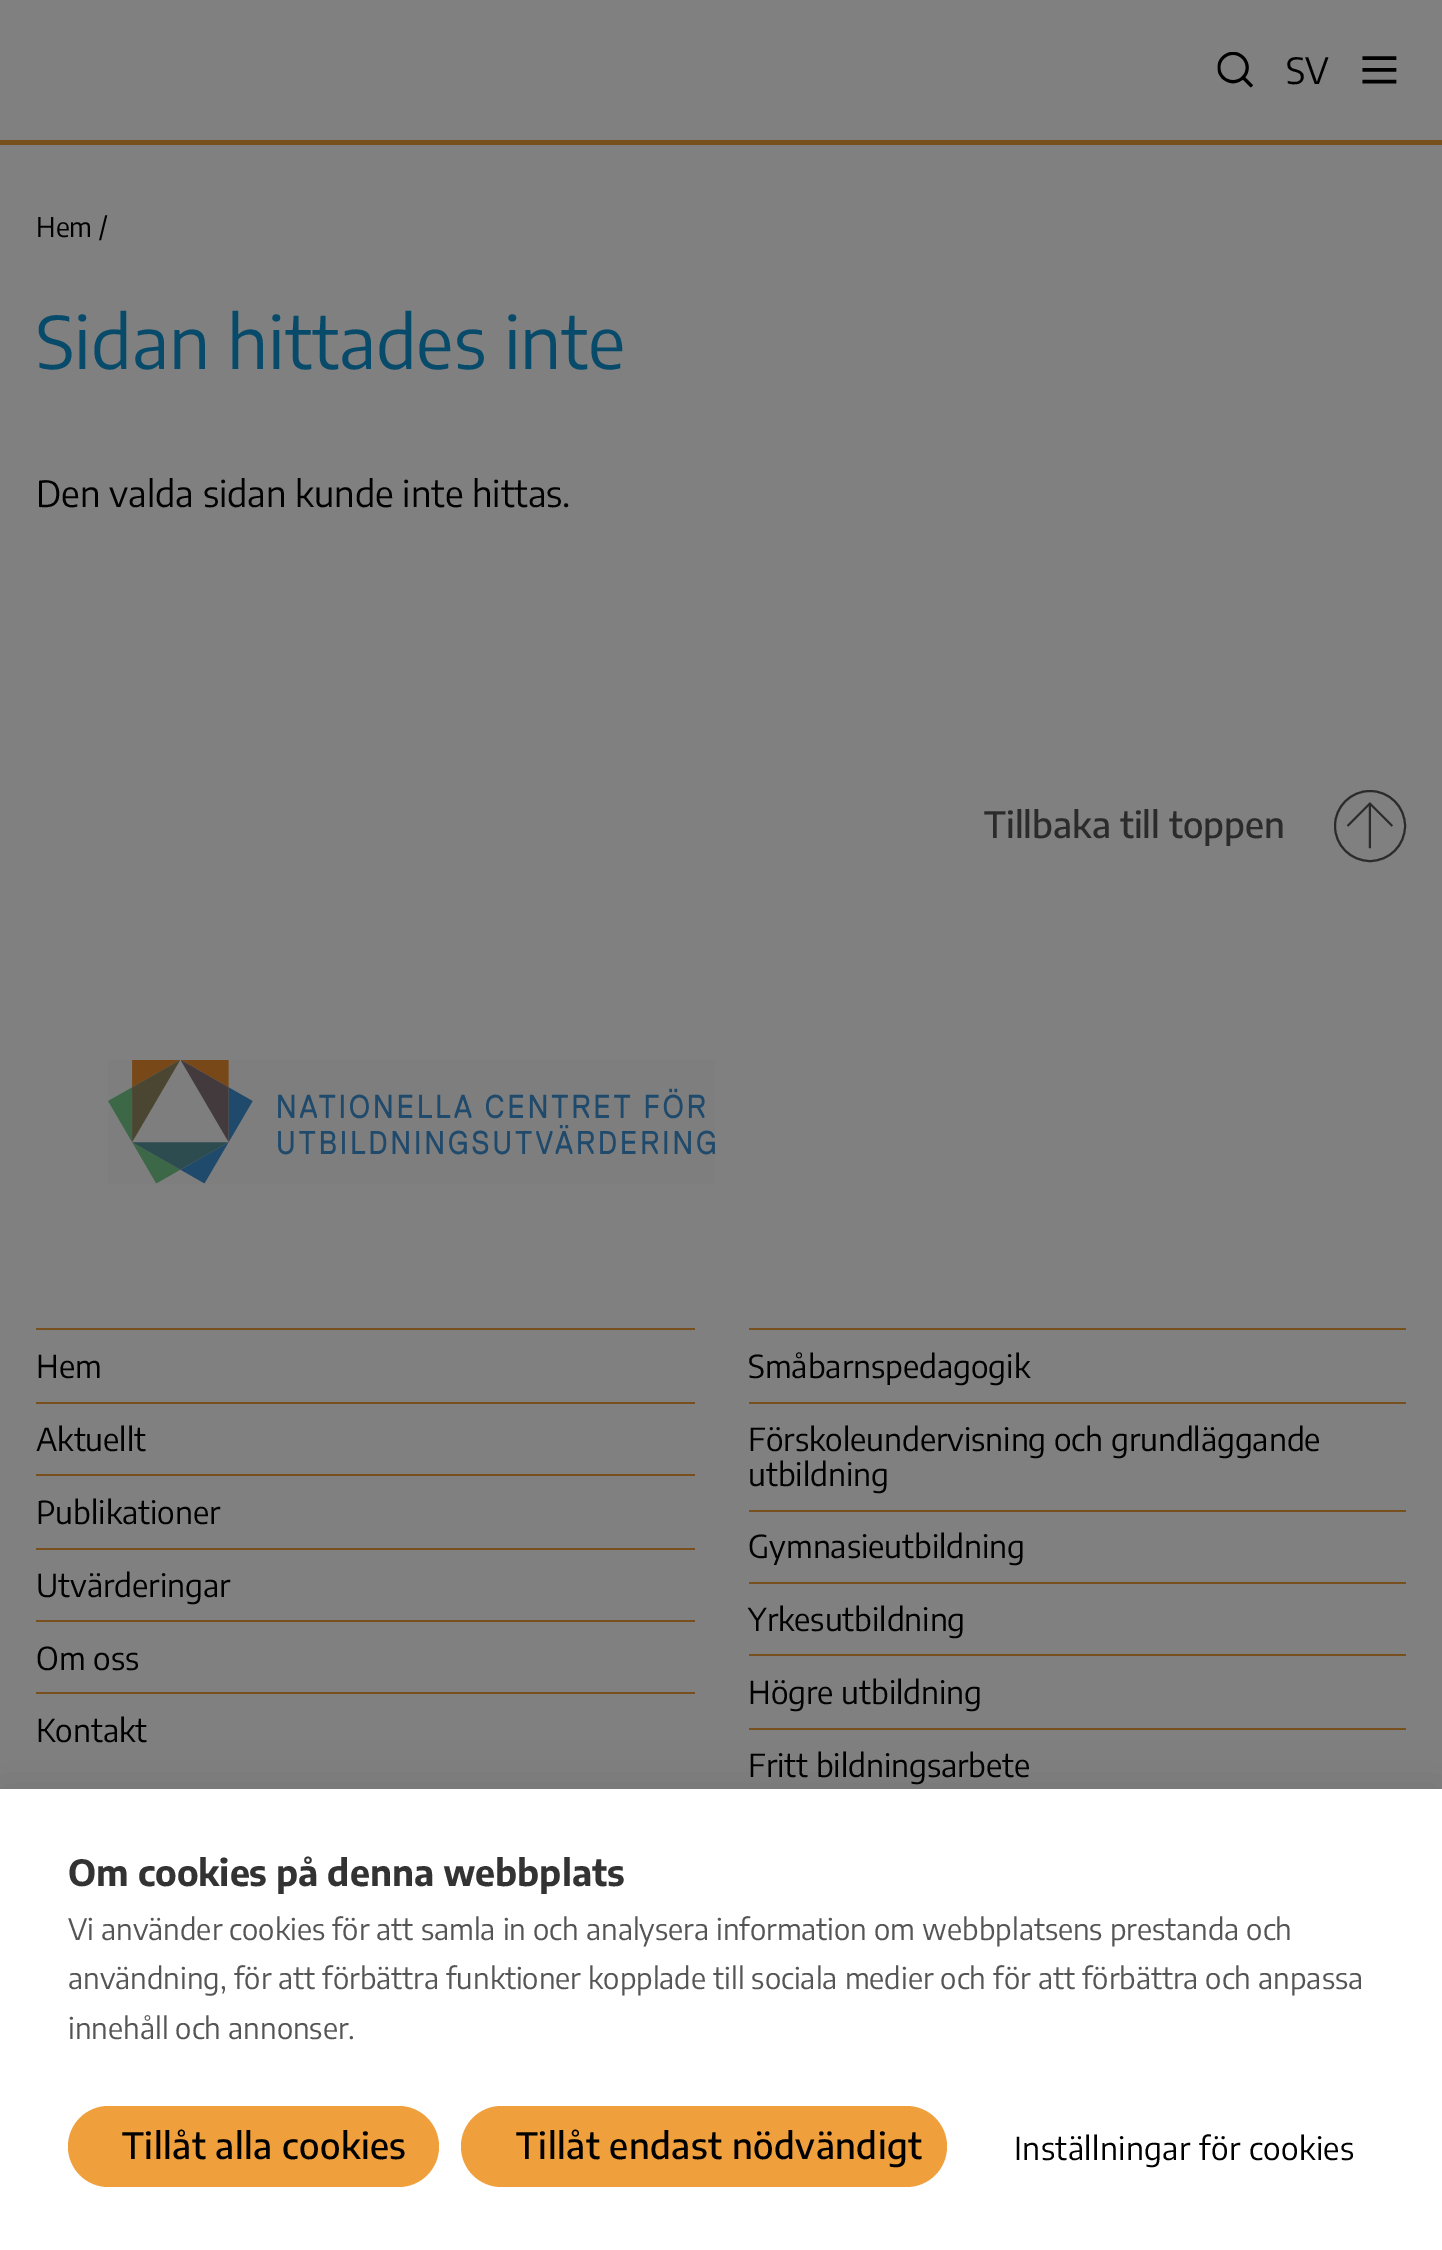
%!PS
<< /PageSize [1442 2250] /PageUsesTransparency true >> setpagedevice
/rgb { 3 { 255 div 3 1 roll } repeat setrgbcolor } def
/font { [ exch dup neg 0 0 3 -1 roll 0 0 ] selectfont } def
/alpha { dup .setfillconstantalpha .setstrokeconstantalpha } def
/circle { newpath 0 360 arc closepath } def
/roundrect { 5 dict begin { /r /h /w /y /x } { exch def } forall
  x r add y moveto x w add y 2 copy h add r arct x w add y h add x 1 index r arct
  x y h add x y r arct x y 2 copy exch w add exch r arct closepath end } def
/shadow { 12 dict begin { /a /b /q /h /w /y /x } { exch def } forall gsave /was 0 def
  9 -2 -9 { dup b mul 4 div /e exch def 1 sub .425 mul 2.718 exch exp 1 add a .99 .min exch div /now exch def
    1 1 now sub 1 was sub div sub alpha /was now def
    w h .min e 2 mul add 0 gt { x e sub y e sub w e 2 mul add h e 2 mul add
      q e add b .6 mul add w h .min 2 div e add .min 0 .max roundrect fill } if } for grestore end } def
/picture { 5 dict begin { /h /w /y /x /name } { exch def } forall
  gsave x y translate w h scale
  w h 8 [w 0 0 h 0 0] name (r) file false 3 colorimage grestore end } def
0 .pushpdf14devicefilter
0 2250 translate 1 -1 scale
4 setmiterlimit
128 128 128 rgb
0 0 1442 2250 rectfill
120 80 30 rgb
0 140 1442 5 rectfill
(img/1.rgb) 1217 52 36 36 picture
(img/2.rgb) 1362 56 35 28 picture
43 43 43 rgb
2 setlinewidth
1370 826 35 circle stroke
(img/3.rgb) 1346 802 47 47 picture
(img/4.rgb) 108 1060 607 124 picture
[
  [36 1328 659 2 120 80 30]
  [36 1402 659 2 120 80 30]
  [36 1474 659 2 120 80 30]
  [36 1548 659 2 120 80 30]
  [36 1620 659 2 120 80 30]
  [36 1692 659 2 120 80 30]
  [749 1328 657 2 120 80 30]
  [749 1402 657 2 120 80 30]
  [749 1510 657 2 120 80 30]
  [749 1582 657 2 120 80 30]
  [749 1654 657 2 120 80 30]
  [749 1728 657 2 120 80 30]
] { aload pop rgb rectfill } forall
0 0 0 rgb
0 1789 1442 461 0 22.5 0.1 shadow
255 255 255 rgb
0 1789 1442 461 rectfill
239 159 60 rgb
68 2106 371 81 40.5 roundrect fill
461 2106 486 81 40.5 roundrect fill
/EncodeSansCondensed-Regular 36 font
0 0 0 rgb
1286 84 moveto (SV) show
/EncodeSansCondensed-Regular 27 font
36 237 moveto (Hem /) show
/EncodeSansCondensed-Regular 72 font
7 74 105 rgb
36 369 moveto (Sidan hittades inte) show
/EncodeSansCondensed-Regular 36 font
0 0 0 rgb
36 507 moveto (Den valda sidan kunde inte hittas.) show
/EncodeSansCondensed-Medium 36 font
43 43 43 rgb
984 838 moveto (Tillbaka till toppen) show
/EncodeSansCondensed-Regular 31.5 font
0 0 0 rgb
[
  [(Hem) 36 1378]
  [(Aktuellt) 36 1451]
  [(Publikationer) 36 1524]
  [(Utvärderingar) 36 1597]
  [(Om oss) 36 1670]
  [(Kontakt) 36 1742]
  [(Småbarnspedagogik) 748 1378]
  [(Förskoleundervisning och grundläggande) 748 1451]
  [(utbildning) 748 1486]
  [(Gymnasieutbildning) 748 1558]
  [(Yrkesutbildning) 748 1631]
  [(Högre utbildning) 748 1704]
  [(Fritt bildningsarbete) 748 1777]
] { aload pop moveto show } forall
/EncodeSansCondensed-Bold 36 font
51 51 51 rgb
68 1886 moveto (Om cookies på denna webbplats) show
/EncodeSansCondensed-Regular 29.25 font
85 85 85 rgb
[
  [(Vi använder cookies för att samla in och analysera information om webbplatsens prestanda och) 68 1940]
  [(användning, för att förbättra funktioner kopplade till sociala medier och för att förbättra och anpassa) 68 1989]
  [(innehåll och annonser.) 68 2039]
] { aload pop moveto show } forall
/EncodeSansCondensed-Medium 36 font
0 0 0 rgb
122 2159 moveto 0.45 0 (Tillåt alla cookies) ashow
516 2159 moveto 0.45 0 (Tillåt endast nödvändigt) ashow
/EncodeSansCondensed-Regular 31.5 font
1014 2160 moveto 0.45 0 (Inställningar för cookies) ashow
.poppdf14devicefilter showpage
